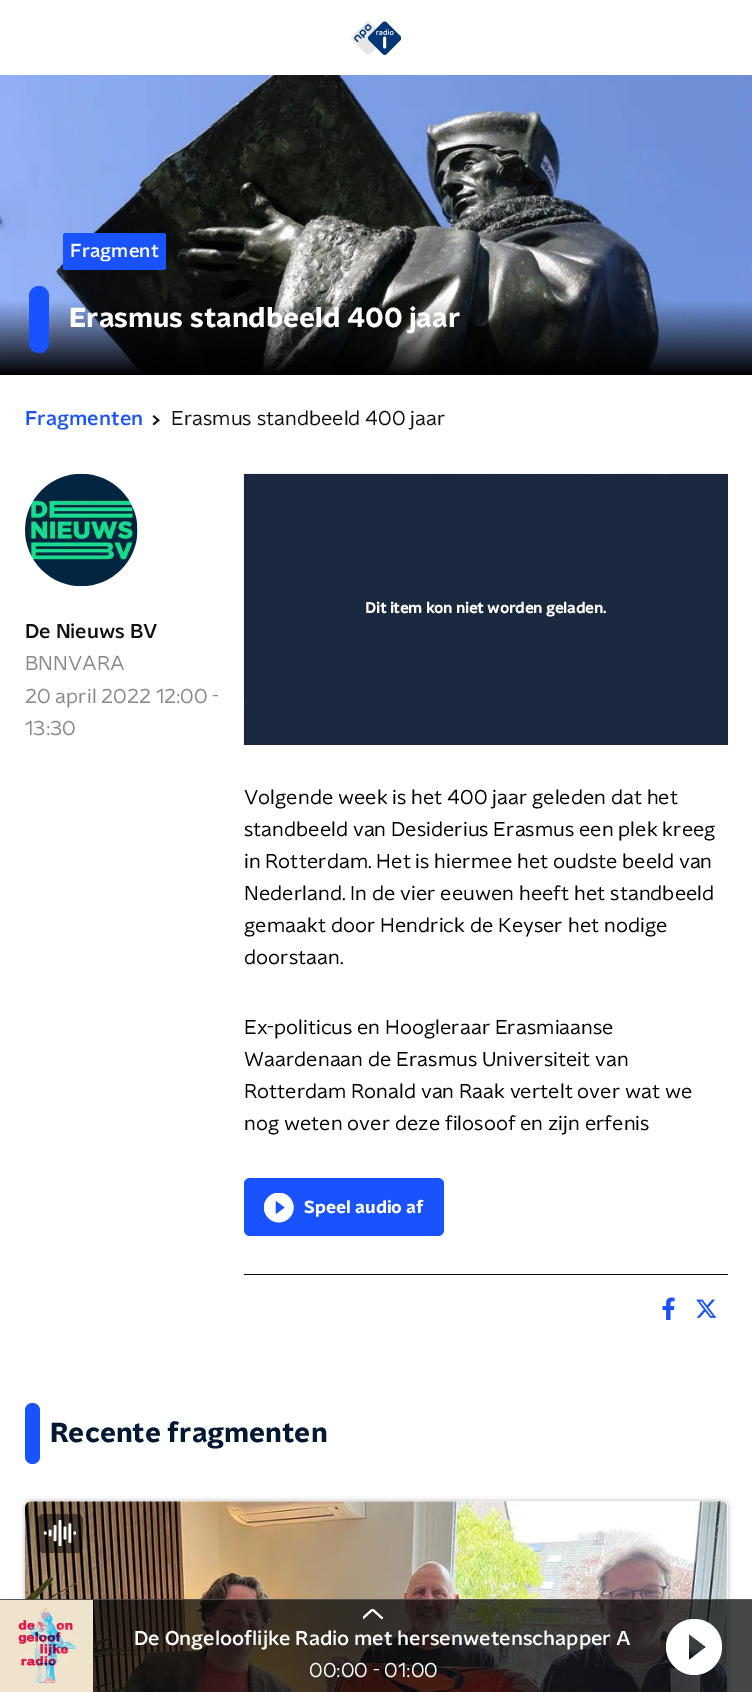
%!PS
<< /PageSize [752 1692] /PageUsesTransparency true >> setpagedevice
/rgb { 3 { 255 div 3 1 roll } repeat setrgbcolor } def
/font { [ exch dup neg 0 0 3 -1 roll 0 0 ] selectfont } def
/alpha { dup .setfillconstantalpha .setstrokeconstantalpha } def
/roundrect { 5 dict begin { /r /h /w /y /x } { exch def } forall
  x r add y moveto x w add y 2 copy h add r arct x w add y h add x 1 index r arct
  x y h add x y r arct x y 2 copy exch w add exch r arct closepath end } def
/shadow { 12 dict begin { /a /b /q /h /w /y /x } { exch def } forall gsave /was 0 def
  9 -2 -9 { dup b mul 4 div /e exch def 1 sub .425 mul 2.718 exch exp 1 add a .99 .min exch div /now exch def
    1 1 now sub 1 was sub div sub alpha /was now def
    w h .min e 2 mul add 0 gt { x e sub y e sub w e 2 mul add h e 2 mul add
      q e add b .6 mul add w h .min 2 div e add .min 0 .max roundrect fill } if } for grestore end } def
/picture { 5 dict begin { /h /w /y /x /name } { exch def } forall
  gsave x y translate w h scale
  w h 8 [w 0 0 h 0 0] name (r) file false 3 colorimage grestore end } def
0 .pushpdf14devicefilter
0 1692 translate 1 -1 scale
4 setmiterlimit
255 255 255 rgb
0 0 752 1692 rectfill
(img/1.rgb) 351 21 50 34 picture
(img/2.rgb) 0 75 752 300 picture
25 82 255 rgb
63 233 103 37 2.5 roundrect fill
29 286 20 67 10 roundrect fill
(img/3.rgb) 152 415 8 10 picture
(img/4.rgb) 25 473 113 114 picture
(img/5.rgb) 243 473 484 272 picture
27 41 63 rgb
244 474 484 271 rectfill
25 82 255 rgb
244 1178 200 58 6 roundrect fill
(img/6.rgb) 264 1193 30 30 picture
16 16 16 rgb
244 1274 484 1 rectfill
(img/7.rgb) 662 1297 13 23 picture
(img/8.rgb) 696 1299 21 19 picture
25 82 255 rgb
25 1403 15 61 7.5 roundrect fill
0 0 0 rgb
25 1501 703 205 6 2.5 0.25 shadow
255 255 255 rgb
25 1501 703 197 6 roundrect fill
(img/9.rgb) 25 1501 703 191 picture
0.5 alpha
0 0 0 rgb
38 1514 45 39 6 roundrect fill
1 alpha
(img/10.rgb) 44 1520 32 26 picture
0.75 alpha
9 9 9 rgb
0 1599 752 93 rectfill
0.65 alpha
95 95 95 rgb
0 1599 752 1 rectfill
1 alpha
(img/11.rgb) 0 1600 93 92 picture
gsave
363 1609 22 11 rectclip
255 255 255 rgb
2 setlinewidth
382.5 1618.5 moveto 372.5 1609.5 lineto 362.5 1618.5 lineto stroke
grestore
255 255 255 rgb
694 1619 moveto 679 1619 666 1631 666 1647 curveto 666 1662 679 1675 694 1675 curveto 710 1675 722 1662 722 1647 curveto 722 1631 710 1619 694 1619 curveto closepath 689 1660 moveto 689 1634 lineto 706 1647 lineto closepath fill
/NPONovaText-Medium 18.75 font
70 257 moveto (Fragment) show
/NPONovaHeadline-Bold 27.5 font
69 327 moveto (Erasmus standbeeld 400 jaar) show
/NPONovaText-Medium 20 font
25 82 255 rgb
25 425 moveto (Fragmenten) show
/NPONovaText-Regular 20 font
16 16 16 rgb
171 425 moveto (Erasmus standbeeld 400 jaar) show
/NPONovaText-Medium 20 font
25 638 moveto (De Nieuws BV) show
/NPONovaText-Regular 20 font
136 136 136 rgb
[
  [(BNNVARA) 25 670]
  [(20 april 2022 12:00 -) 25 703]
  [(13:30) 25 735]
] { aload pop moveto show } forall
/NPONovaText-Bold 15 font
255 255 255 rgb
365 613 moveto (Dit item kon niet worden geladen.) show
/NPONovaText-Regular 20 font
0 0 0 rgb
[
  [(Volgende week is het 400 jaar geleden dat het) 244 804]
  [(standbeeld van Desiderius Erasmus een plek kreeg) 244 836]
  [(in Rotterdam. Het is hiermee het oudste beeld van) 244 868]
  [(Nederland. In de vier eeuwen heeft het standbeeld) 244 900]
  [(gemaakt door Hendrick de Keyser het nodige) 244 932]
  [(doorstaan.) 244 964]
  [(Ex-politicus en Hoogleraar Erasmiaanse) 244 1034]
  [(Waardenaan de Erasmus Universiteit van) 244 1066]
  [(Rotterdam Ronald van Raak vertelt over wat we) 244 1098]
  [(nog weten over deze filosoof en zijn erfenis) 244 1130]
] { aload pop moveto show } forall
/NPONovaHeadline-Bold 17.5 font
255 255 255 rgb
304 1213 moveto (Speel audio af) show
/NPONovaHeadline-Bold 27.5 font
2 24 51 rgb
50 1442 moveto (Recente fragmenten) show
/NPONovaText-Medium 20 font
255 255 255 rgb
134 1645 moveto (De Ongelooflijke Radio met hersenwetenschapper A) show
/NPONovaText-Regular 20 font
309 1677 moveto (00:00 - 01:00) show
.poppdf14devicefilter showpage
